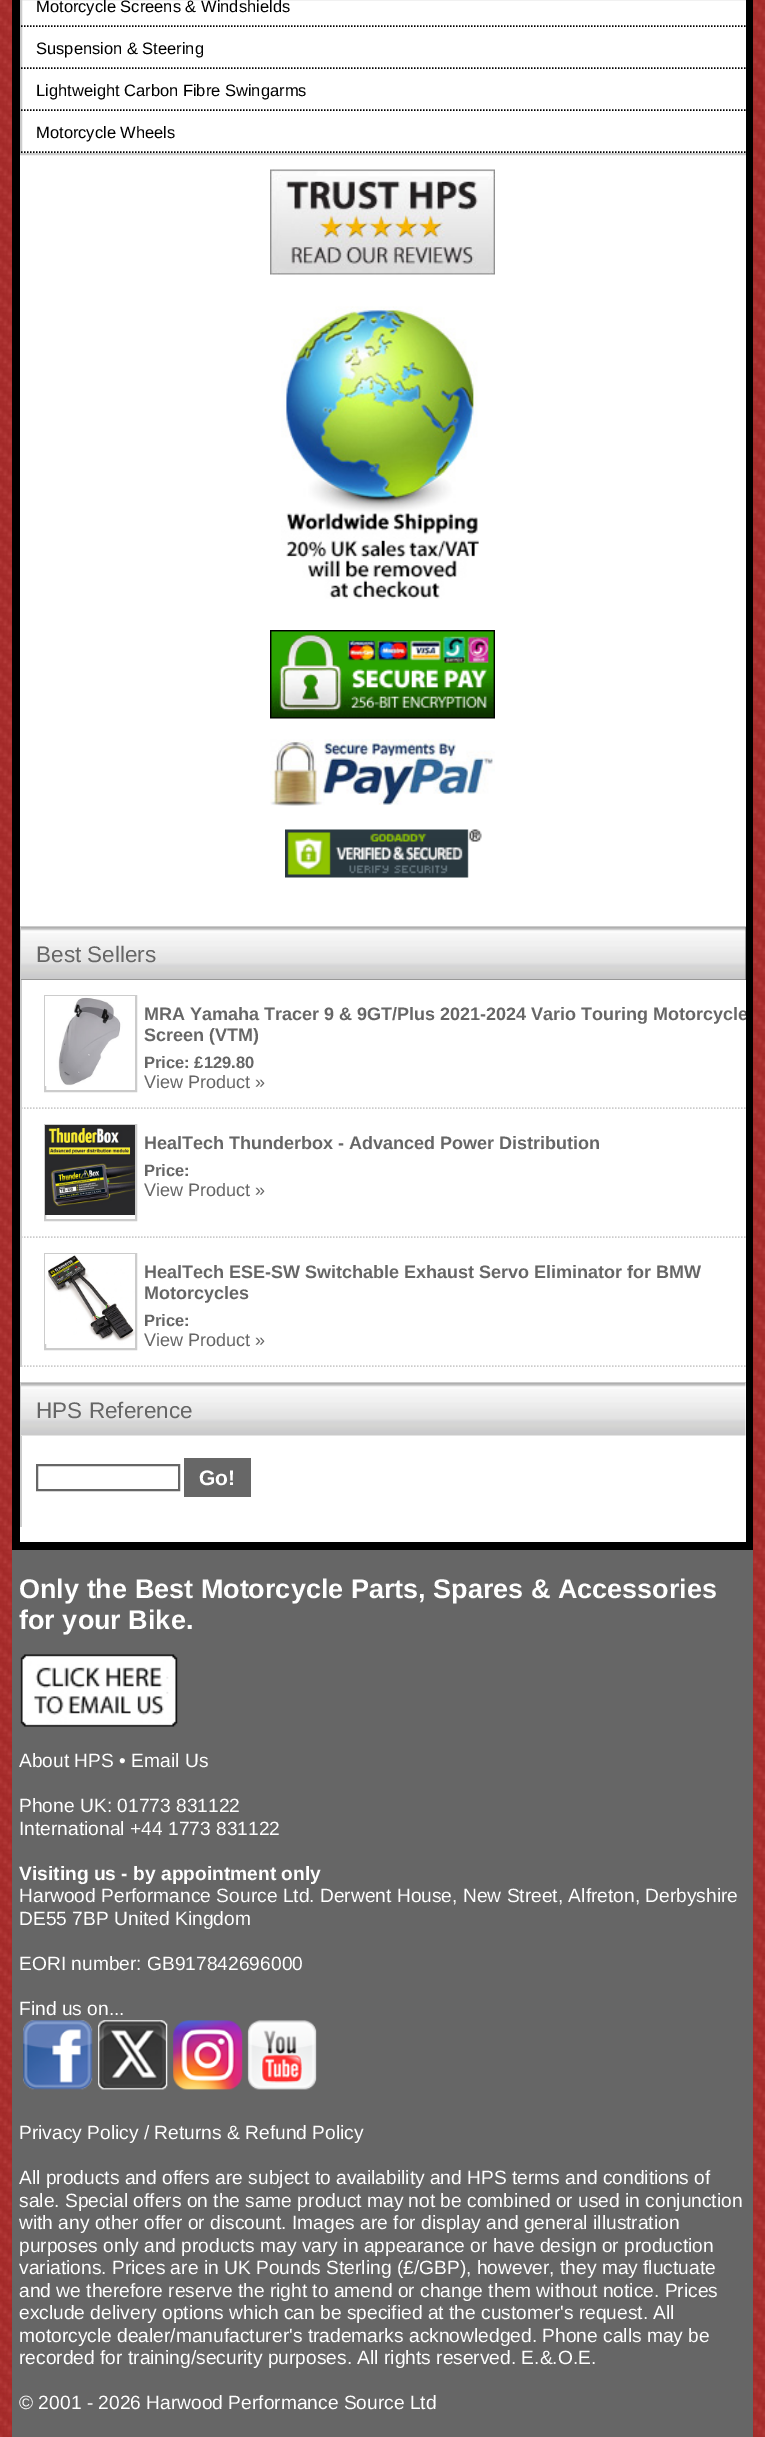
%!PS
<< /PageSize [765 2437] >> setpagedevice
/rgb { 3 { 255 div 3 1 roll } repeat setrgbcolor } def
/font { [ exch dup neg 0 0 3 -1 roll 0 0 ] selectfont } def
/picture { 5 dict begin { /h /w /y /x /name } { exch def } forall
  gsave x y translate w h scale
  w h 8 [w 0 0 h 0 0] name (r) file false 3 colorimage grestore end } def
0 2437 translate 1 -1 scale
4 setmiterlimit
255 255 255 rgb
0 0 765 2437 rectfill
(img/1.rgb) 0 0 765 2437 picture
0 0 0 rgb
12 0 741 1550 rectfill
255 255 255 rgb
20 0 726 1542 rectfill
gsave
20 0 726 1542 rectclip
204 204 204 rgb
2 setlinewidth
21 -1 727 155 rectstroke
0 0 0 rgb
1.5 setlinewidth
[1.5 1.5] 0 setdash
21 26 moveto 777 26 lineto stroke
21 68 moveto 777 68 lineto stroke
21 110 moveto 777 110 lineto stroke
21 152 moveto 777 152 lineto stroke
grestore
(img/2.rgb) 270 169 225 106 picture
(img/3.rgb) 281 306 198 293 picture
(img/4.rgb) 270 630 225 89 picture
(img/5.rgb) 270 739 225 67 picture
(img/6.rgb) 285 829 197 49 picture
[
  [20 926 726 1 204 204 204]
  [20 926 2 441 204 204 204]
  [21 927 725 53 102 102 102]
] { aload pop rgb rectfill } forall
(img/7.rgb) 21 927 725 53 picture
gsave
20 0 726 1542 rectclip
204 204 204 rgb
1.5 setlinewidth
[1.5 1.5] 0 setdash
21 1108 moveto 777 1108 lineto stroke
grestore
204 204 204 rgb
2 setlinewidth
45 996 91 95 rectstroke
(img/8.rgb) 45 996 90 90 picture
gsave
20 0 726 1542 rectclip
1.5 setlinewidth
[1.5 1.5] 0 setdash
21 1237 moveto 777 1237 lineto stroke
grestore
45 1125 91 95 rectstroke
(img/9.rgb) 45 1125 90 90 picture
gsave
20 0 726 1542 rectclip
1.5 setlinewidth
[1.5 1.5] 0 setdash
21 1366 moveto 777 1366 lineto stroke
grestore
45 1254 91 95 rectstroke
(img/10.rgb) 45 1254 90 90 picture
[
  [20 1382 726 1 204 204 204]
  [20 1382 2 145 204 204 204]
  [21 1383 1 53 255 255 255]
] { aload pop rgb rectfill } forall
(img/11.rgb) 21 1383 725 53 picture
102 102 102 rgb
37 1465 142 25 rectstroke
103 103 103 rgb
184 1458 67 39 rectfill
102 102 102 rgb
12 1550 741 887 rectfill
(img/12.rgb) 20 1654 158 73 picture
(img/13.rgb) 23 2020 70 70 picture
(img/14.rgb) 98 2020 70 70 picture
(img/15.rgb) 173 2020 70 70 picture
(img/16.rgb) 247 2020 70 70 picture
/LiberationSans-Regular 16.5 font
0 0 0 rgb
[
  [(Motorcycle Screens & Windshields) 36 12]
  [(Suspension & Steering) 36 54]
  [(Lightweight Carbon Fibre Swingarms) 36 96]
  [(Motorcycle Wheels) 36 138]
] { aload pop moveto show } forall
/LiberationSans-Regular 22.5 font
102 102 102 rgb
36 962 moveto (Best Sellers) show
gsave
20 0 726 1542 rectclip
/LiberationSans-Bold 18 font
144 1020 moveto (MRA Yamaha Tracer 9 & 9GT/Plus 2021-2024 Vario Touring Motorcycle) show
grestore
/LiberationSans-Bold 18 font
144 1041 moveto (Screen \(VTM\)) show
/LiberationSans-Bold 16.5 font
144 1068 moveto (Price: £129.80) show
/LiberationSans-Regular 18 font
144 1088 moveto (View Product ») show
/LiberationSans-Bold 18 font
144 1149 moveto (HealTech Thunderbox - Advanced Power Distribution) show
/LiberationSans-Bold 16.5 font
144 1176 moveto (Price:) show
/LiberationSans-Regular 18 font
144 1196 moveto (View Product ») show
/LiberationSans-Bold 18 font
144 1278 moveto (HealTech ESE-SW Switchable Exhaust Servo Eliminator for BMW) show
144 1299 moveto (Motorcycles) show
/LiberationSans-Bold 16.5 font
144 1326 moveto (Price:) show
/LiberationSans-Regular 18 font
144 1346 moveto (View Product ») show
/LiberationSans-Regular 22.5 font
36 1418 moveto (HPS Reference) show
/LiberationSans-Bold 21 font
255 255 255 rgb
199 1485 moveto (Go!) show
/LiberationSans-Bold 27 font
19 1598 moveto (Only the Best Motorcycle Parts, Spares & Accessories) show
19 1629 moveto (for your Bike.) show
/LiberationSans-Regular 19.2 font
[
  [(About HPS • Email Us) 19 1767]
  [(Phone UK: 01773 831122) 19 1812]
  [(International +44 1773 831122) 19 1835]
] { aload pop moveto show } forall
/LiberationSans-Bold 19.2 font
19 1880 moveto (Visiting us - by appointment only) show
/LiberationSans-Regular 19.2 font
[
  [(Harwood Performance Source Ltd. Derwent House, New Street, Alfreton, Derbyshire) 19 1902]
  [(DE55 7BP United Kingdom) 19 1925]
  [(EORI number: GB917842696000) 19 1970]
  [(Find us on...) 19 2015]
  [(Privacy Policy / Returns & Refund Policy) 19 2139]
  [(All products and offers are subject to availability and HPS terms and conditions of) 19 2184]
  [(sale. Special offers on the same product may not be combined or used in conjunction) 19 2207]
  [(with any other offer or discount. Images are for display and general illustration) 19 2229]
  [(purposes only and products may vary in appearance or have design or production) 19 2252]
  [(variations. Prices are in UK Pounds Sterling \(£/GBP\), however, they may fluctuate) 19 2274]
  [(and we therefore reserve the right to amend or change them without notice. Prices) 19 2297]
  [(exclude delivery options which can be specified at the customer's request. All) 19 2319]
  [(motorcycle dealer/manufacturer's trademarks acknowledged. Phone calls may be) 19 2342]
  [(recorded for training/security purposes. All rights reserved. E.&.O.E.) 19 2364]
  [(© 2001 - 2026 Harwood Performance Source Ltd) 19 2409]
] { aload pop moveto show } forall
showpage
